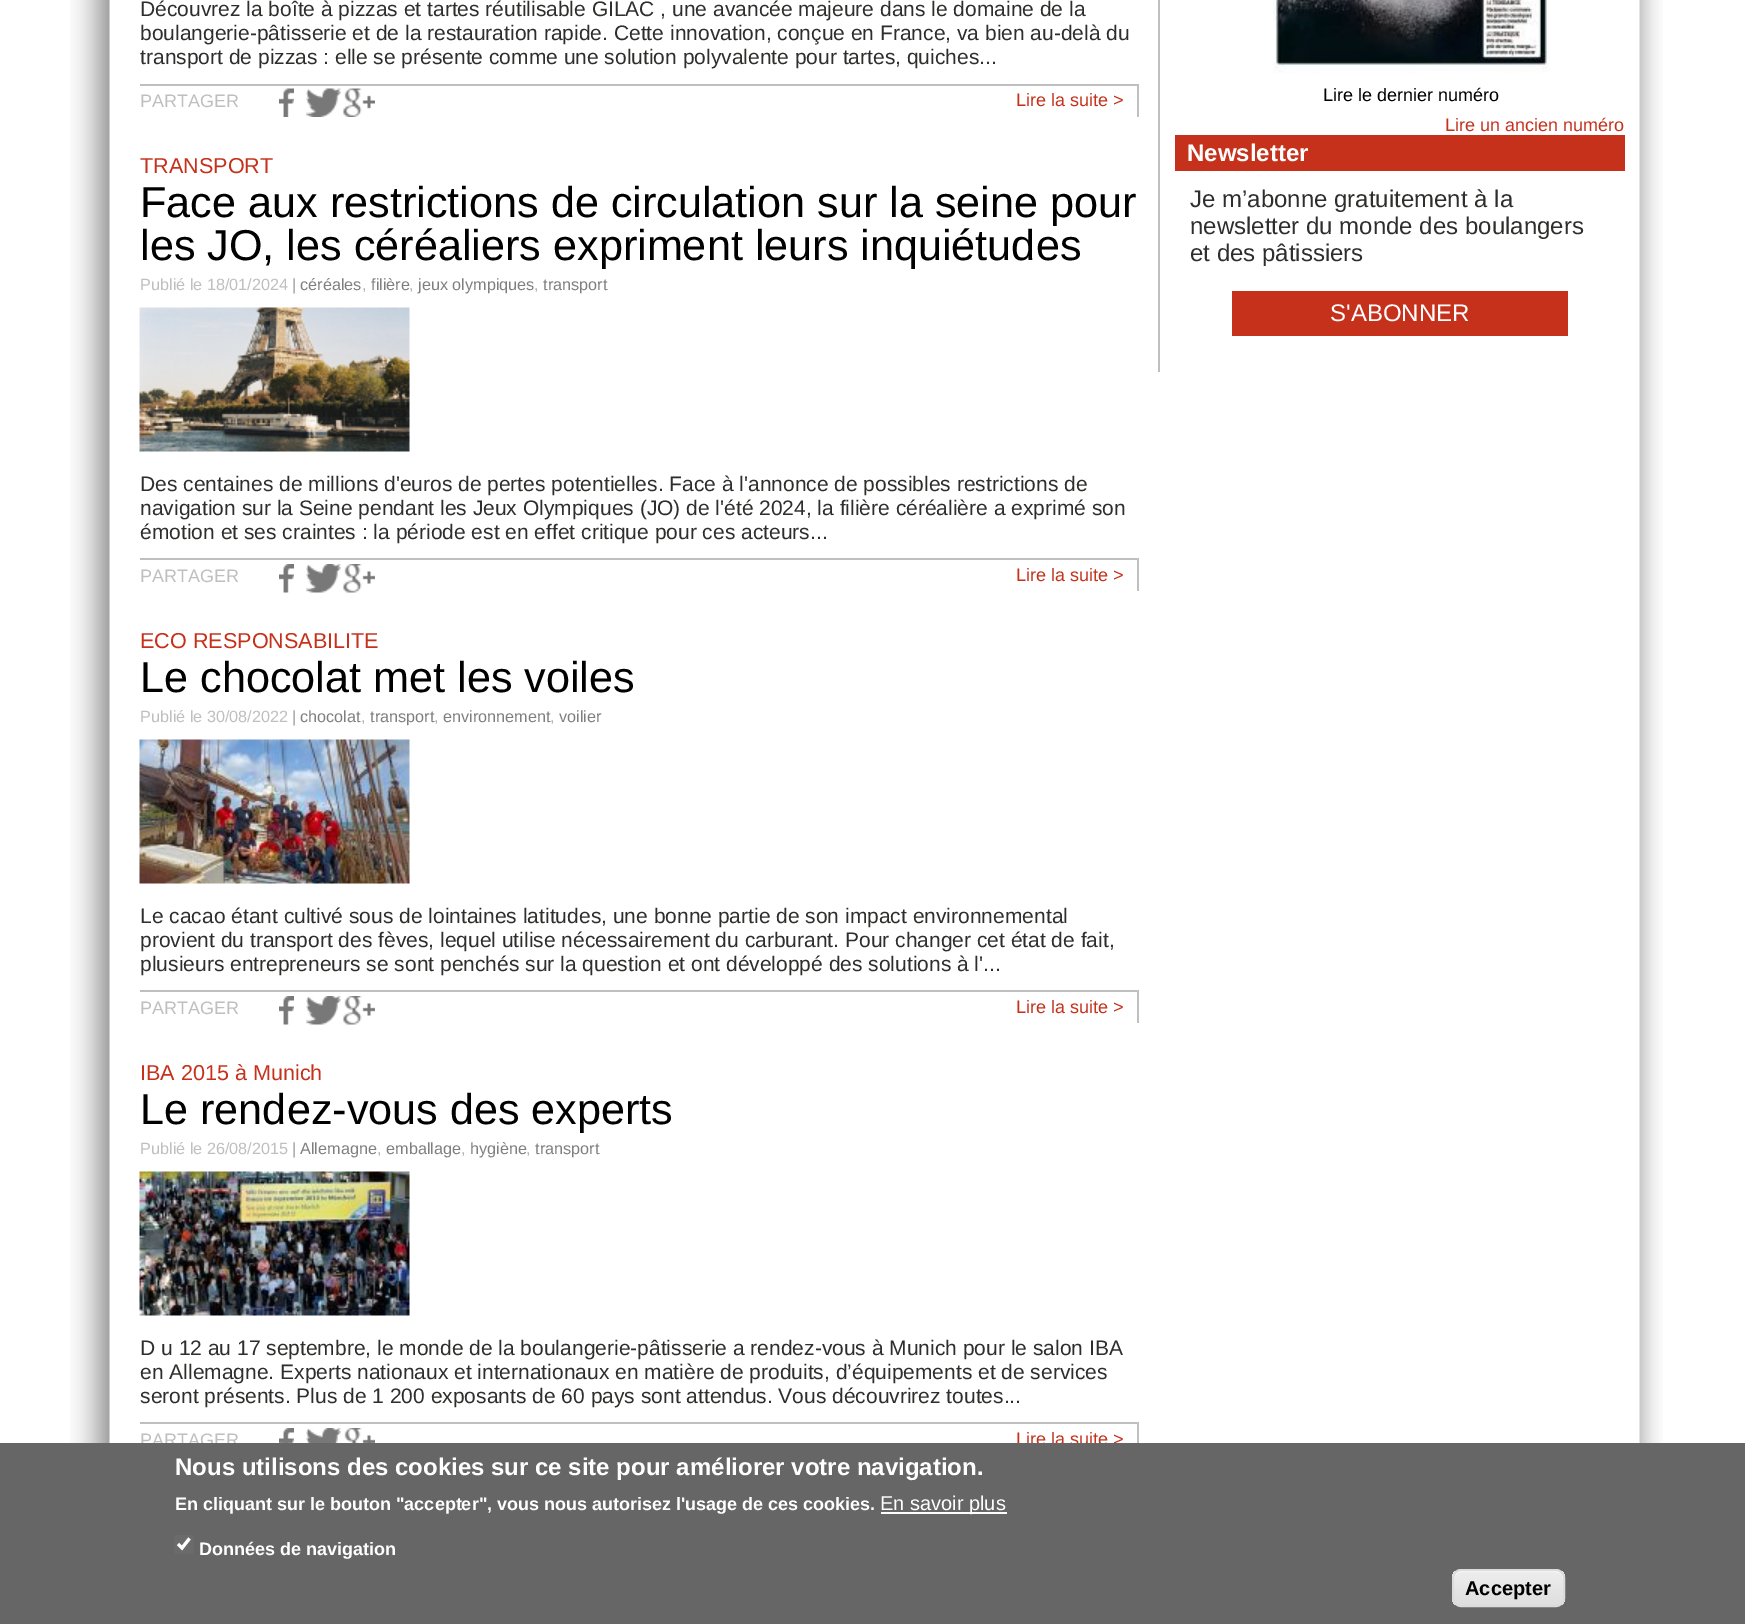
%!PS
<< /PageSize [1745 1624] >> setpagedevice
/rgb { 3 { 255 div 3 1 roll } repeat setrgbcolor } def
/font { [ exch dup neg 0 0 3 -1 roll 0 0 ] selectfont } def
/roundrect { 5 dict begin { /r /h /w /y /x } { exch def } forall
  x r add y moveto x w add y 2 copy h add r arct x w add y h add x 1 index r arct
  x y h add x y r arct x y 2 copy exch w add exch r arct closepath end } def
/picture { 5 dict begin { /h /w /y /x /name } { exch def } forall
  gsave x y translate w h scale
  w h 8 [w 0 0 h 0 0] name (r) file false 3 colorimage grestore end } def
0 1624 translate 1 -1 scale
4 setmiterlimit
255 255 255 rgb
0 0 1745 1624 rectfill
(img/1.rgb) 70 0 40 1443 picture
191 191 191 rgb
140 84 999 2 rectfill
1137 84 2 33 rectfill
(img/2.rgb) 279 88 15 29 picture
(img/3.rgb) 306 88 35 29 picture
(img/4.rgb) 343 88 32 29 picture
(img/5.rgb) 139 307 271 145 picture
140 558 999 2 rectfill
1137 558 2 33 rectfill
(img/6.rgb) 279 564 15 29 picture
(img/7.rgb) 306 564 35 29 picture
(img/8.rgb) 343 564 32 29 picture
(img/9.rgb) 139 739 271 145 picture
140 990 999 2 rectfill
1137 990 2 33 rectfill
(img/6.rgb) 279 996 15 29 picture
(img/7.rgb) 306 996 35 29 picture
(img/8.rgb) 343 996 32 29 picture
(img/10.rgb) 139 1171 271 145 picture
140 1422 999 2 rectfill
1137 1422 2 21 rectfill
(img/11.rgb) 279 1428 15 15 picture
(img/12.rgb) 306 1428 35 15 picture
(img/13.rgb) 344 1428 31 15 picture
1158 0 2 372 rectfill
(img/14.rgb) 1273 0 277 73 picture
198 49 28 rgb
1175 135 450 36 rectfill
1232 291 336 45 rectfill
(img/15.rgb) 1639 0 24 1443 picture
/LiberationSans-Regular 21 font
46 47 45 rgb
[
  [(Découvrez la boîte à pizzas et tartes réutilisable GILAC , une avancée majeure dans le domaine de la) 140 16]
  [(boulangerie-pâtisserie et de la restauration rapide. Cette innovation, conçue en France, va bien au-delà du) 140 40]
  [(transport de pizzas : elle se présente comme une solution polyvalente pour tartes, quiches...) 140 64]
] { aload pop moveto show } forall
/LiberationSans-Regular 18 font
191 191 191 rgb
140 107 moveto (PARTAGER) show
198 49 28 rgb
1016 106 moveto (Lire la suite >) show
/LiberationSans-Regular 21.6 font
140 173 moveto (TRANSPORT) show
/LiberationSans-Regular 43.2 font
0 0 0 rgb
140 217 moveto (Face aux restrictions de circulation sur la seine pour) show
140 260 moveto (les JO, les céréaliers expriment leurs inquiétudes) show
/LiberationSans-Regular 16.25 font
191 191 191 rgb
140 290 moveto (Publié le 18/01/2024) show
151 149 155 rgb
292 290 moveto (|) show
127 127 127 rgb
300 290 moveto (céréales) show
177 177 177 rgb
362 290 moveto (,) show
127 127 127 rgb
371 290 moveto (filière) show
177 177 177 rgb
409 290 moveto (,) show
127 127 127 rgb
418 290 moveto (jeux olympiques) show
177 177 177 rgb
534 290 moveto (,) show
127 127 127 rgb
543 290 moveto (transport) show
/LiberationSans-Regular 21 font
46 47 45 rgb
[
  [(Des centaines de millions d'euros de pertes potentielles. Face à l'annonce de possibles restrictions de) 140 491]
  [(navigation sur la Seine pendant les Jeux Olympiques \(JO\) de l'été 2024, la filière céréalière a exprimé son) 140 515]
  [(émotion et ses craintes : la période est en effet critique pour ces acteurs...) 140 539]
] { aload pop moveto show } forall
/LiberationSans-Regular 18 font
191 191 191 rgb
140 582 moveto (PARTAGER) show
198 49 28 rgb
1016 581 moveto (Lire la suite >) show
/LiberationSans-Regular 21.6 font
140 648 moveto (ECO RESPONSABILITE) show
/LiberationSans-Regular 43.2 font
0 0 0 rgb
140 692 moveto (Le chocolat met les voiles) show
/LiberationSans-Regular 16.25 font
191 191 191 rgb
140 722 moveto (Publié le 30/08/2022) show
151 149 155 rgb
292 722 moveto (|) show
127 127 127 rgb
300 722 moveto (chocolat) show
177 177 177 rgb
361 722 moveto (,) show
127 127 127 rgb
370 722 moveto (transport) show
177 177 177 rgb
434 722 moveto (,) show
127 127 127 rgb
443 722 moveto (environnement) show
177 177 177 rgb
550 722 moveto (,) show
127 127 127 rgb
559 722 moveto (voilier) show
/LiberationSans-Regular 21 font
46 47 45 rgb
[
  [(Le cacao étant cultivé sous de lointaines latitudes, une bonne partie de son impact environnemental) 140 923]
  [(provient du transport des fèves, lequel utilise nécessairement du carburant. Pour changer cet état de fait,) 140 947]
  [(plusieurs entrepreneurs se sont penchés sur la question et ont développé des solutions à l'...) 140 971]
] { aload pop moveto show } forall
/LiberationSans-Regular 18 font
191 191 191 rgb
140 1014 moveto (PARTAGER) show
198 49 28 rgb
1016 1013 moveto (Lire la suite >) show
/LiberationSans-Regular 21.6 font
140 1080 moveto (IBA 2015 à Munich) show
/LiberationSans-Regular 43.2 font
0 0 0 rgb
140 1124 moveto (Le rendez-vous des experts) show
/LiberationSans-Regular 16.25 font
191 191 191 rgb
140 1154 moveto (Publié le 26/08/2015) show
151 149 155 rgb
292 1154 moveto (|) show
127 127 127 rgb
300 1154 moveto (Allemagne) show
177 177 177 rgb
377 1154 moveto (,) show
127 127 127 rgb
386 1154 moveto (emballage) show
177 177 177 rgb
461 1154 moveto (,) show
127 127 127 rgb
470 1154 moveto (hygiène) show
177 177 177 rgb
526 1154 moveto (,) show
127 127 127 rgb
535 1154 moveto (transport) show
/LiberationSans-Regular 21 font
46 47 45 rgb
[
  [(D u 12 au 17 septembre, le monde de la boulangerie-pâtisserie a rendez-vous à Munich pour le salon IBA) 140 1355]
  [(en Allemagne. Experts nationaux et internationaux en matière de produits, d’équipements et de services) 140 1379]
  [(seront présents. Plus de 1 200 exposants de 60 pays sont attendus. Vous découvrirez toutes...) 140 1403]
] { aload pop moveto show } forall
/LiberationSans-Regular 18 font
191 191 191 rgb
140 1446 moveto (PARTAGER) show
198 49 28 rgb
1016 1445 moveto (Lire la suite >) show
0 0 0 rgb
1323 101 moveto (Lire le dernier numéro) show
198 49 28 rgb
1445 131 moveto (Lire un ancien numéro) show
/LiberationSans-Bold 24 font
255 255 255 rgb
1187 161 moveto (Newsletter) show
/LiberationSans-Regular 24 font
46 47 45 rgb
[
  [(Je m’abonne gratuitement à la) 1190 207]
  [(newsletter du monde des boulangers) 1190 234]
  [(et des pâtissiers) 1190 261]
] { aload pop moveto show } forall
255 255 255 rgb
1330 321 moveto (S'ABONNER) show
102 102 102 rgb
0 1443 1745 181 rectfill
/LiberationSans-Bold 24 font
255 255 255 rgb
175 1475 moveto (Nous utilisons des cookies sur ce site pour améliorer votre navigation.) show
/LiberationSans-Bold 18 font
175 1510 moveto (En cliquant sur le bouton "accepter", vous nous autorisez l'usage de ces cookies.) show
881 1512 126 2 rectfill
/LiberationSans-Regular 20 font
880 1510 moveto (En savoir plus) show
107 107 107 rgb
174 1535 20 19 3 roundrect fill
255 255 255 rgb
3.1 setlinewidth
178 1544 moveto 182 1548 lineto 189.5 1538.5 lineto stroke
/LiberationSans-Bold 18 font
199 1555 moveto (Données de navigation) show
gsave
1452 1569 113 38 9 roundrect clip newpath
gsave 1452 1571 moveto 1565 1571 lineto 1565 1605 lineto 1452 1605 lineto closepath clip newpath
<< /ShadingType 2 /ColorSpace /DeviceRGB /Coords [1508 1571 1508 1605] /Extend [true true] /Function << /FunctionType 3 /Domain [0 1] /Functions [<< /FunctionType 2 /Domain [0 1] /C0 [0.929 0.929 0.929] /C1 [0.929 0.929 0.929] /N 1 >> << /FunctionType 2 /Domain [0 1] /C0 [0.929 0.929 0.929] /C1 [0.875 0.875 0.875] /N 1 >>] /Bounds [0.05] /Encode [0 1 0 1] >> >> shfill grestore
grestore
1461 1572 moveto 1556 1572 lineto 1560 1572 1563 1575 1563 1580 curveto 1563 1567 1548 1571 1540 1571 curveto 1478 1571 lineto 1469 1571 1454 1567 1454 1580 curveto 1454 1575 1457 1572 1461 1572 curveto closepath fill
220 220 220 rgb
2 setlinewidth
1453 1570 111 36 8 roundrect stroke
/LiberationSans-Bold 20 font
0 0 0 rgb
1465 1595 moveto (Accepter) show
showpage
